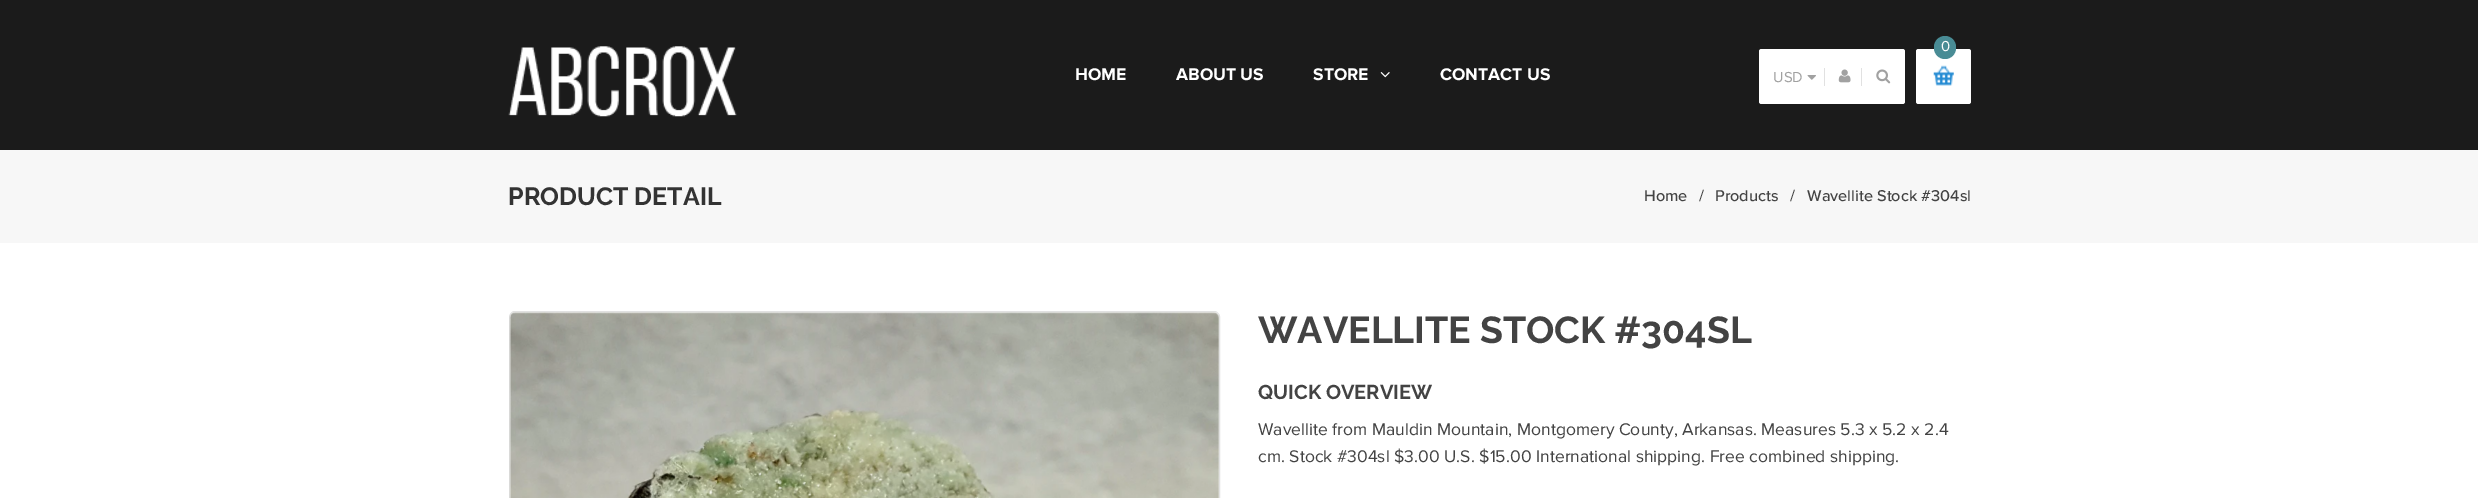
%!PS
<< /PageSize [2478 498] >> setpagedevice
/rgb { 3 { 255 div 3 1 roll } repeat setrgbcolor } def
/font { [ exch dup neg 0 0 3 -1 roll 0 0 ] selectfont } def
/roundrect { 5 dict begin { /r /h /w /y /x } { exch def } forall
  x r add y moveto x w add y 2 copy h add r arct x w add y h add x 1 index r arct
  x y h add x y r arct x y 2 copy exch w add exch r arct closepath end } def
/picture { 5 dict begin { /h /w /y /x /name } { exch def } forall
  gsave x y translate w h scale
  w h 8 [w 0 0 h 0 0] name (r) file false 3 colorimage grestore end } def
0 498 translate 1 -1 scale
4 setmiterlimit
255 255 255 rgb
0 0 2478 498 rectfill
27 27 27 rgb
0 0 2478 150 rectfill
(img/1.rgb) 508 46 229 71 picture
(img/2.rgb) 1380 72 10 6 picture
255 255 255 rgb
1916 49 55 55 2.5 roundrect fill
(img/3.rgb) 1933 65 21 21 picture
73 140 149 rgb
1934 36 22 23 11 roundrect fill
255 255 255 rgb
1759 49 146 55 2.5 roundrect fill
(img/4.rgb) 1807 75 9 5 picture
225 225 225 rgb
1824 68 1 18 rectfill
(img/5.rgb) 1838 69 13 14 picture
1861 68 1 18 rectfill
(img/6.rgb) 1876 69 15 15 picture
247 247 247 rgb
0 150 2478 93 rectfill
225 225 225 rgb
509.5 311.5 710 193 5.5 roundrect stroke
(img/7.rgb) 509 312 710 186 picture
/ProximaNova-Bold 17.5 font
255 255 255 rgb
[
  [(HOME) 1075 80]
  [(ABOUT US) 1176 80]
  [(STORE) 1313 80]
  [(CONTACT US) 1440 80]
] { aload pop moveto show } forall
/ProximaNova-Regular 15 font
1941 51 moveto (0) show
161 161 161 rgb
1773 82 moveto (USD) show
/Raleway-Bold 25 font
51 51 51 rgb
508 205 moveto (PRODUCT DETAIL) show
/ProximaNova-Medium 16.25 font
67 67 67 rgb
[
  [(Home) 1644 201]
  [(/) 1699 201]
  [(Products) 1715 201]
  [(/) 1790 201]
  [(Wavellite Stock #304sl) 1807 201]
] { aload pop moveto show } forall
/Raleway-Bold 37.5 font
1258 343 moveto (WAVELLITE STOCK #304SL) show
/Raleway-Bold 20 font
1258 399 moveto (QUICK OVERVIEW) show
/ProximaNova-Regular 17.5 font
1258 435 moveto (Wavellite from Mauldin Mountain, Montgomery County, Arkansas. Measures 5.3 x 5.2 x 2.4) show
1258 462 moveto (cm. Stock #304sl $3.00 U.S. $15.00 International shipping. Free combined shipping.) show
showpage
